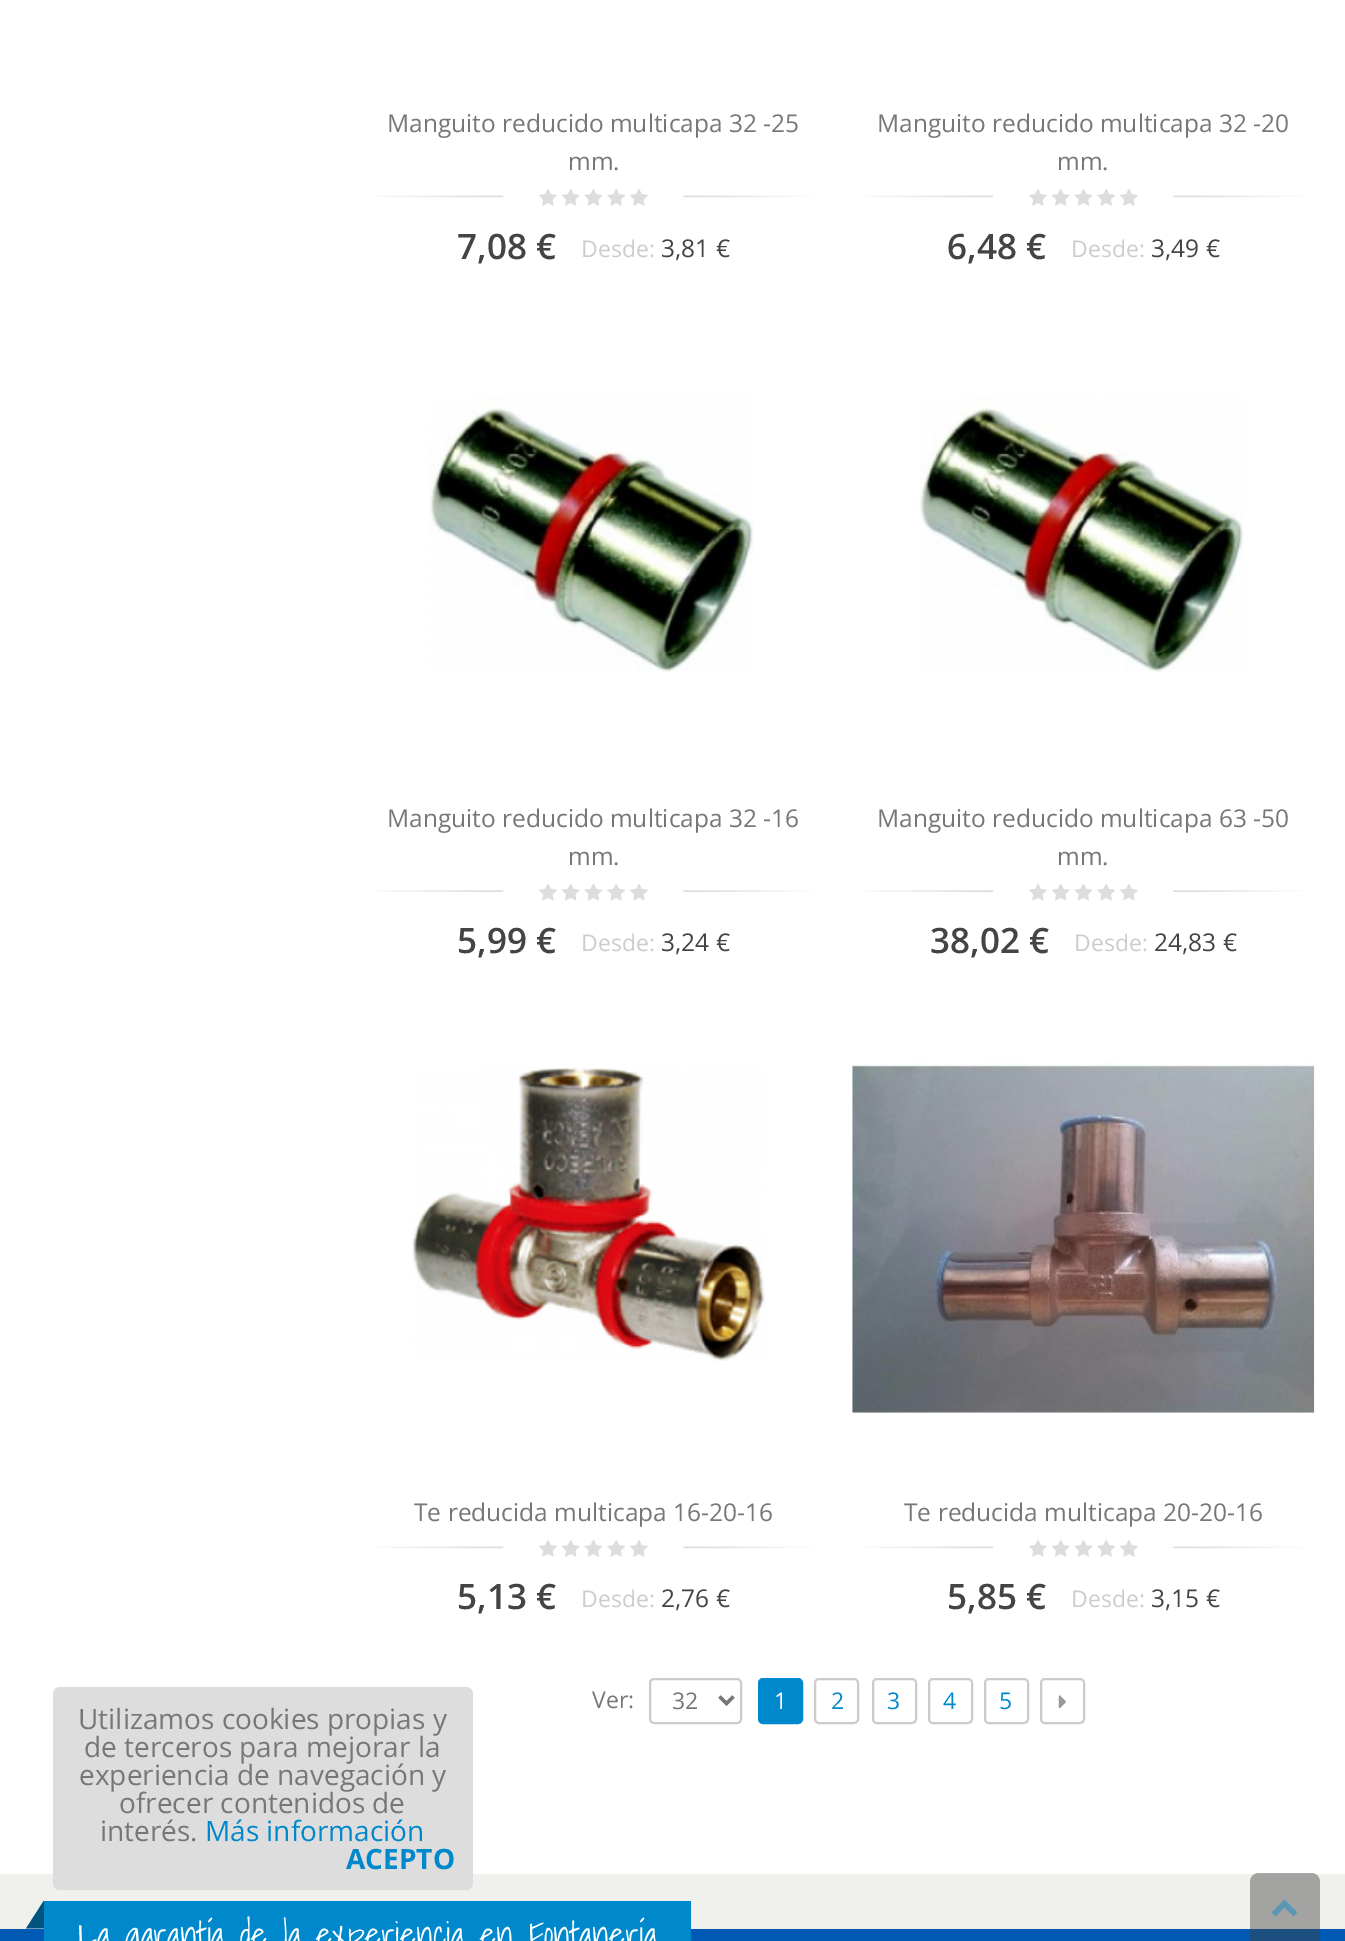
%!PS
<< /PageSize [1345 1941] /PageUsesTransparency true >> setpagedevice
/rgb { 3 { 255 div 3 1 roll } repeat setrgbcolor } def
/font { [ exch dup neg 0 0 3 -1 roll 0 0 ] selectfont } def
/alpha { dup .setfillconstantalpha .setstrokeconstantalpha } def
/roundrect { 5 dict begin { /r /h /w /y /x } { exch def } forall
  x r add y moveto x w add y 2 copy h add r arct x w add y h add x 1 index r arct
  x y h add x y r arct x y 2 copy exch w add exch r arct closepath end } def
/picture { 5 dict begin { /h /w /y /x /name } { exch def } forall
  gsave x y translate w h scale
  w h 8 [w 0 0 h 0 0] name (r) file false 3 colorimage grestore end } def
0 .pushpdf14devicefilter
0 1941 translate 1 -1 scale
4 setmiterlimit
255 255 255 rgb
0 0 1345 1941 rectfill
(img/1.rgb) 375 195 437 3 picture
(img/2.rgb) 539 189 18 17 picture
(img/3.rgb) 562 189 18 17 picture
(img/4.rgb) 584 189 19 17 picture
(img/5.rgb) 607 189 18 17 picture
(img/2.rgb) 630 189 18 17 picture
(img/1.rgb) 865 195 437 3 picture
(img/2.rgb) 1029 189 18 17 picture
(img/3.rgb) 1052 189 18 17 picture
(img/4.rgb) 1074 189 19 17 picture
(img/5.rgb) 1097 189 18 17 picture
(img/2.rgb) 1120 189 18 17 picture
(img/6.rgb) 429 397 325 275 picture
(img/7.rgb) 375 890 437 2 picture
(img/8.rgb) 539 884 18 17 picture
(img/9.rgb) 562 884 18 17 picture
(img/10.rgb) 584 884 19 17 picture
(img/11.rgb) 607 884 18 17 picture
(img/8.rgb) 630 884 18 17 picture
(img/12.rgb) 919 397 325 275 picture
(img/7.rgb) 865 890 437 2 picture
(img/8.rgb) 1029 884 18 17 picture
(img/9.rgb) 1052 884 18 17 picture
(img/10.rgb) 1074 884 19 17 picture
(img/11.rgb) 1097 884 18 17 picture
(img/8.rgb) 1120 884 18 17 picture
(img/13.rgb) 412 1067 353 294 picture
(img/1.rgb) 375 1546 437 3 picture
(img/2.rgb) 539 1540 18 17 picture
(img/3.rgb) 562 1540 18 17 picture
(img/4.rgb) 584 1540 19 17 picture
(img/5.rgb) 607 1540 18 17 picture
(img/2.rgb) 630 1540 18 17 picture
(img/14.rgb) 852 1062 463 352 picture
(img/1.rgb) 865 1546 437 3 picture
(img/2.rgb) 1029 1540 18 17 picture
(img/3.rgb) 1052 1540 18 17 picture
(img/4.rgb) 1074 1540 19 17 picture
(img/5.rgb) 1097 1540 18 17 picture
(img/2.rgb) 1120 1540 18 17 picture
204 204 204 rgb
2 setlinewidth
650 1679 91 44 4 roundrect stroke
119 119 119 rgb
3.5 setlinewidth
719.5 1696.5 moveto 726.5 1703.5 lineto 733.5 1696.5 lineto stroke
0 136 204 rgb
759 1679 43 44 4 roundrect gsave fill grestore
2 setlinewidth
stroke
204 204 204 rgb
815 1679 43 44 4 roundrect stroke
873 1679 43 44 4 roundrect stroke
929 1679 43 44 4 roundrect stroke
985 1679 43 44 4 roundrect stroke
1041 1679 43 44 4 roundrect stroke
(img/15.rgb) 1058 1695 8 14 picture
240 240 237 rgb
0 1874 1345 55 rectfill
221 221 221 rgb
53 1687 420 203 7 roundrect fill
0 90 179 rgb
0 1929 1345 12 rectfill
0 136 204 rgb
44 1901 647 40 rectfill
0 85 128 rgb
44 1900.5 moveto 44 1928.5 lineto 26 1928.5 lineto closepath fill
0.44 alpha
64 64 64 rgb
1259 1873 moveto 1311 1873 lineto 1316 1873 1320 1877 1320 1882 curveto 1320 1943 lineto 1250 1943 lineto 1250 1882 lineto 1250 1877 1254 1873 1259 1873 curveto closepath fill
1 alpha
(img/16.rgb) 1272 1900 25 17 picture
/OpenSans-Regular 24.5 font
119 119 119 rgb
387 132 moveto (Manguito reducido multicapa 32 -25) show
568 170 moveto (mm.) show
/OpenSans-SemiBold 35 font
68 68 68 rgb
457 259 moveto (7,08 €) show
/OpenSans-Regular 23 font
204 204 204 rgb
581 257 moveto (Desde:) show
/OpenSans-Regular 24.5 font
68 68 68 rgb
661 257 moveto (3,81 €) show
119 119 119 rgb
877 132 moveto (Manguito reducido multicapa 32 -20) show
1057 170 moveto (mm.) show
/OpenSans-SemiBold 35 font
68 68 68 rgb
947 259 moveto (6,48 €) show
/OpenSans-Regular 23 font
204 204 204 rgb
1071 257 moveto (Desde:) show
/OpenSans-Regular 24.5 font
68 68 68 rgb
1151 257 moveto (3,49 €) show
119 119 119 rgb
387 827 moveto (Manguito reducido multicapa 32 -16) show
568 865 moveto (mm.) show
/OpenSans-SemiBold 35 font
68 68 68 rgb
457 953 moveto (5,99 €) show
/OpenSans-Regular 23 font
204 204 204 rgb
581 951 moveto (Desde:) show
/OpenSans-Regular 24.5 font
68 68 68 rgb
661 951 moveto (3,24 €) show
119 119 119 rgb
877 827 moveto (Manguito reducido multicapa 63 -50) show
1057 865 moveto (mm.) show
/OpenSans-SemiBold 35 font
68 68 68 rgb
930 953 moveto (38,02 €) show
/OpenSans-Regular 23 font
204 204 204 rgb
1074 951 moveto (Desde:) show
/OpenSans-Regular 24.5 font
68 68 68 rgb
1154 951 moveto (24,83 €) show
119 119 119 rgb
414 1521 moveto (Te reducida multicapa 16-20-16) show
/OpenSans-SemiBold 35 font
68 68 68 rgb
457 1609 moveto (5,13 €) show
/OpenSans-Regular 23 font
204 204 204 rgb
581 1607 moveto (Desde:) show
/OpenSans-Regular 24.5 font
68 68 68 rgb
661 1607 moveto (2,76 €) show
119 119 119 rgb
904 1521 moveto (Te reducida multicapa 20-20-16) show
/OpenSans-SemiBold 35 font
68 68 68 rgb
947 1609 moveto (5,85 €) show
/OpenSans-Regular 23 font
204 204 204 rgb
1071 1607 moveto (Desde:) show
/OpenSans-Regular 24.5 font
68 68 68 rgb
1151 1607 moveto (3,15 €) show
/OpenSans-Regular 23 font
119 119 119 rgb
592 1708 moveto (Ver:) show
672 1709 moveto (32) show
255 255 255 rgb
774 1709 moveto (1) show
0 136 204 rgb
[
  [(2) 831 1709]
  [(3) 887 1709]
  [(4) 943 1709]
  [(5) 999 1709]
] { aload pop moveto show } forall
/OpenSans-Regular 28 font
119 119 119 rgb
[
  [(Utilizamos cookies propias y) 78 1729]
  [(de terceros para mejorar la) 84 1757]
  [(experiencia de navegación y) 79 1785]
  [(ofrecer contenidos de) 119 1813]
  [(interés.) 100 1841]
] { aload pop moveto show } forall
0 136 204 rgb
205 1841 moveto (Más información) show
/OpenSans-Bold 28 font
346 1869 moveto (ACEPTO) show
/ShadowsIntoLight-Light 35 font
255 255 255 rgb
78 1947 moveto (La garantía de la experiencia en Fontanería) show
.poppdf14devicefilter showpage
